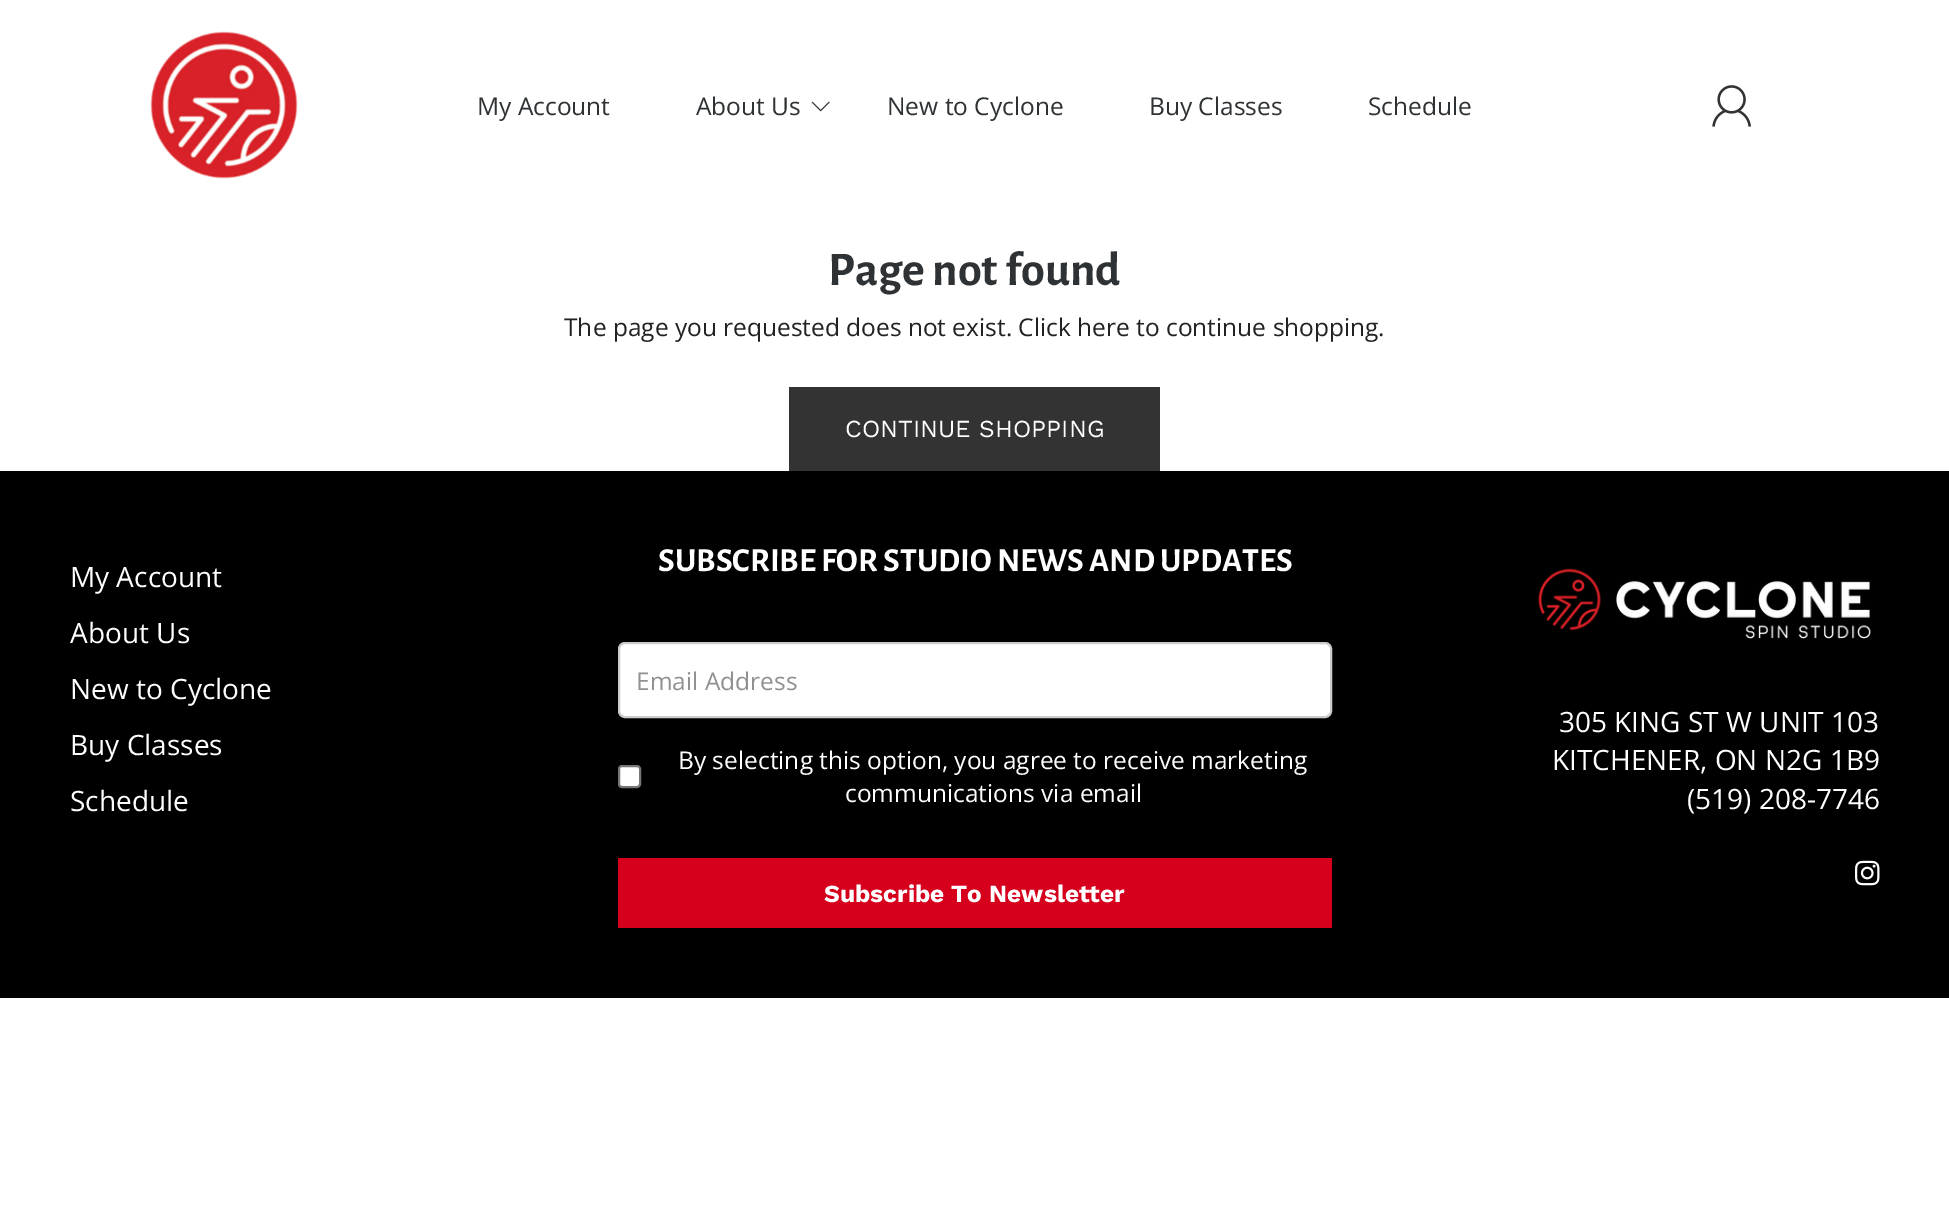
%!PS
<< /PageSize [1949 1218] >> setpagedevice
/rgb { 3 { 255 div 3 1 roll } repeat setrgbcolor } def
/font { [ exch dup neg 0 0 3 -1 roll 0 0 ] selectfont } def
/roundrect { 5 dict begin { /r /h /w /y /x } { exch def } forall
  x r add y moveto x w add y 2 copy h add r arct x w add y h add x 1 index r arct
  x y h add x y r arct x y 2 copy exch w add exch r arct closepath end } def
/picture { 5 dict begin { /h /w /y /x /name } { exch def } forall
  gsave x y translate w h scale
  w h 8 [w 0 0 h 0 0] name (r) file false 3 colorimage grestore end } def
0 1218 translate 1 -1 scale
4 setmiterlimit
255 255 255 rgb
0 0 1949 1218 rectfill
(img/1.rgb) 150 31 148 148 picture
(img/2.rgb) 811 101 19 11 picture
(img/3.rgb) 1712 85 39 42 picture
51 51 51 rgb
789 387 371 84 rectfill
0 0 0 rgb
0 471 1949 527 rectfill
255 255 255 rgb
619 643 712 74 6 roundrect gsave fill grestore
204 204 204 rgb
2 setlinewidth
stroke
255 255 255 rgb
619 766 21 21 3 roundrect gsave fill grestore
118 118 118 rgb
stroke
214 0 28 rgb
618 858 714 70 rectfill
(img/4.rgb) 1538 568 333 71 picture
(img/5.rgb) 1855 860 25 26 picture
/OpenSans-Regular 24.5 font
46 50 52 rgb
[
  [(My Account) 477 115]
  [(About Us) 696 115]
  [(New to Cyclone) 887 115]
  [(Buy Classes) 1149 115]
  [(Schedule) 1368 115]
] { aload pop moveto show } forall
/AlegreyaSans-Bold 48.25 font
828 285 moveto (Page not found) show
/OpenSans-Regular 24.5 font
34 34 34 rgb
564 336 moveto (The page you requested does not exist. Click here to continue shopping.) show
/WorkSans-Regular 24.5 font
255 255 255 rgb
845 437 moveto (CONTINUE SHOPPING) show
/OpenSans-Regular 28 font
[
  [(My Account) 70 587]
  [(About Us) 70 643]
  [(New to Cyclone) 70 699]
  [(Buy Classes) 70 755]
  [(Schedule) 70 811]
] { aload pop moveto show } forall
/AlegreyaSans-Bold 33.6 font
658 571 moveto (SUBSCRIBE FOR STUDIO NEWS AND UPDATES) show
/OpenSans-Regular 24.5 font
145 145 145 rgb
636 690 moveto (Email Address) show
255 255 255 rgb
678 769 moveto (By selecting this option, you agree to receive marketing) show
845 802 moveto (communications via email) show
/WorkSans-Bold 24.5 font
824 902 moveto (Subscribe To Newsletter) show
/OpenSans-Regular 28 font
[
  [(305 KING ST W UNIT 103) 1559 732]
  [(KITCHENER, ON N2G 1B9) 1552 770]
  [(\(519\) 208-7746) 1687 809]
] { aload pop moveto show } forall
showpage
